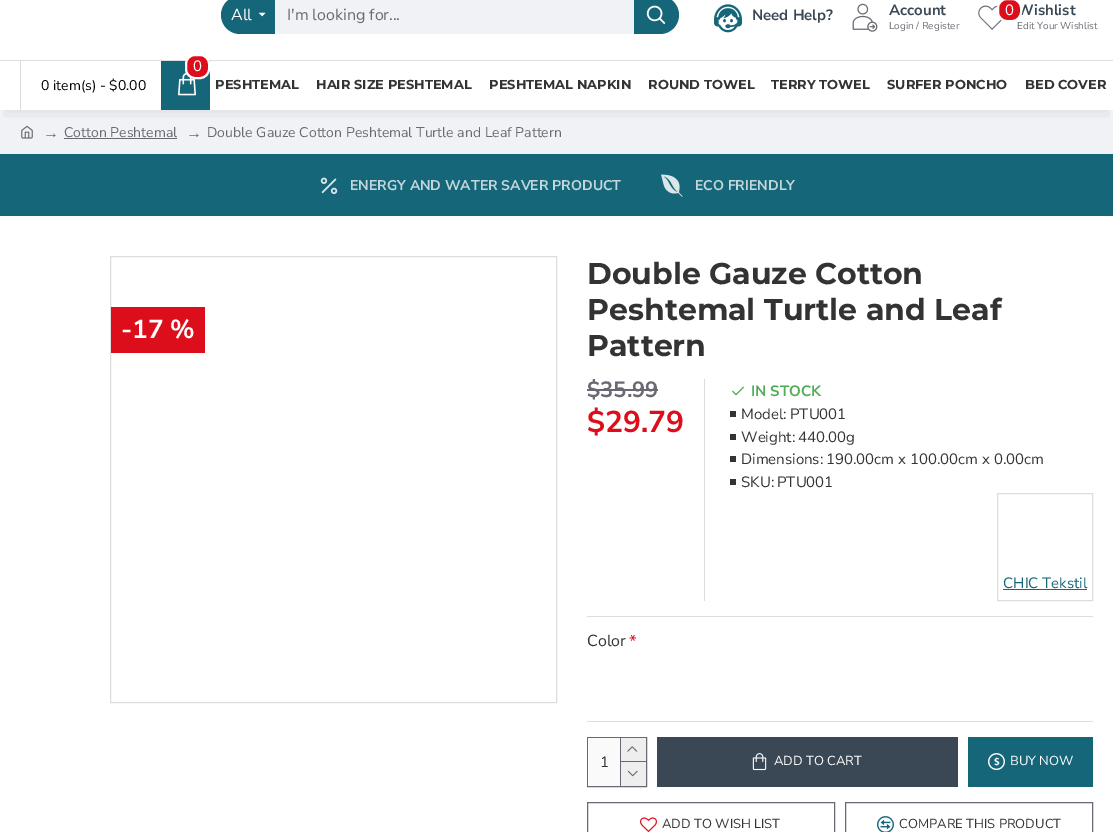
%!PS
<< /PageSize [1113 832] /PageUsesTransparency true >> setpagedevice
/rgb { 3 { 255 div 3 1 roll } repeat setrgbcolor } def
/font { [ exch dup neg 0 0 3 -1 roll 0 0 ] selectfont } def
/alpha { dup .setfillconstantalpha .setstrokeconstantalpha } def
/roundrect { 5 dict begin { /r /h /w /y /x } { exch def } forall
  x r add y moveto x w add y 2 copy h add r arct x w add y h add x 1 index r arct
  x y h add x y r arct x y 2 copy exch w add exch r arct closepath end } def
/shadow { 12 dict begin { /a /b /q /h /w /y /x } { exch def } forall gsave /was 0 def
  9 -2 -9 { dup b mul 4 div /e exch def 1 sub .425 mul 2.718 exch exp 1 add a .99 .min exch div /now exch def
    1 1 now sub 1 was sub div sub alpha /was now def
    w h .min e 2 mul add 0 gt { x e sub y e sub w e 2 mul add h e 2 mul add
      q e add b .6 mul add w h .min 2 div e add .min 0 .max roundrect fill } if } for grestore end } def
/picture { 5 dict begin { /h /w /y /x /name } { exch def } forall
  gsave x y translate w h scale
  w h 8 [w 0 0 h 0 0] name (r) file false 3 colorimage grestore end } def
0 .pushpdf14devicefilter
0 832 translate 1 -1 scale
4 setmiterlimit
255 255 255 rgb
0 0 1113 832 rectfill
240 242 245 rgb
0 110 1113 44 rectfill
(img/7.rgb) 21 125 12 14 picture
105 105 115 rgb
64 138 113 1 rectfill
gsave
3 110 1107 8 rectclip
0 0 0 rgb
5 -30 1103 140 0 10 0.1 shadow
grestore
20 102 120 rgb
240 -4 moveto 275 -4 lineto 275 34 lineto 240 34 lineto 229.5 34 221 25.5 221 15 curveto 221 4.5 229.5 -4 240 -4 curveto closepath fill
(img/1.rgb) 259 12 7 5 picture
240 242 245 rgb
275 0 359 34 rectfill
20 102 120 rgb
634 -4 moveto 660 -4 lineto 670.5 -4 679 4.5 679 15 curveto 679 25.5 670.5 34 660 34 curveto 634 34 lineto closepath fill
(img/2.rgb) 646 5 20 19 picture
(img/3.rgb) 714 4 28 29 picture
(img/4.rgb) 852 3 26 29 picture
(img/5.rgb) 978 5 24 25 picture
[
  [0 60 1113 1 221 221 221]
  [20 60 1 50 221 221 221]
  [161 61 49 49 20 102 120]
] { aload pop rgb rectfill } forall
(img/6.rgb) 178 73 18 23 picture
221 14 28 rgb
186 55 23 23 9 roundrect gsave fill grestore
255 255 255 rgb
2 setlinewidth
stroke
20 102 120 rgb
0 154 1113 62 rectfill
(img/8.rgb) 320 177 18 17 picture
(img/9.rgb) 661 174 22 23 picture
221 221 221 rgb
1 setlinewidth
110.5 256.5 446 446 rectstroke
[
  [111 307 94 46 221 14 28]
  [587 389 71 2 105 105 115]
  [704 379 1 222 221 221 221]
] { aload pop rgb rectfill } forall
(img/10.rgb) 732 386 12 10 picture
[
  [730 411 6 6 51 51 51]
  [730 434 6 6 51 51 51]
  [730 456 6 6 51 51 51]
  [730 479 6 6 51 51 51]
] { aload pop rgb rectfill } forall
221 221 221 rgb
997.5 493.5 95 107 rectstroke
[
  [1003 589 84 1 20 102 120]
  [587 616 506 1 221 221 221]
  [587 721 506 1 221 221 221]
] { aload pop rgb rectfill } forall
105 105 115 rgb
587.5 737.5 59 49 rectstroke
[
  [588 738 32 48 250 250 250]
  [620 738 1 48 105 105 115]
  [621 738 25 23 238 238 238]
  [621 761 25 1 105 105 115]
] { aload pop rgb rectfill } forall
(img/11.rgb) 627 746 11 6 picture
238 238 238 rgb
621 762 25 24 rectfill
(img/12.rgb) 627 770 11 7 picture
58 71 84 rgb
657 737 301 50 rectfill
(img/13.rgb) 752 753 15 18 picture
20 102 120 rgb
968 737 125 50 rectfill
(img/14.rgb) 988 753 17 18 picture
105 105 115 rgb
587.5 802.5 247 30 rectstroke
(img/15.rgb) 640 817 17 15 picture
845.5 802.5 247 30 rectstroke
(img/16.rgb) 877 816 17 16 picture
/NunitoSans-Regular 16 font
255 255 255 rgb
231 20 moveto (All) show
105 105 115 rgb
287 20 moveto (I'm looking for...) show
/NunitoSans-Bold 15 font
58 71 84 rgb
752 20 moveto (Need Help?) show
889 15 moveto (Account) show
/NunitoSans-Regular 10 font
105 105 115 rgb
889 29 moveto (Login / Register) show
/NunitoSans-Bold 15 font
58 71 84 rgb
1017 15 moveto (Wishlist) show
/NunitoSans-Regular 10 font
105 105 115 rgb
1017 29 moveto (Edit Your Wishlist) show
221 14 28 rgb
998 -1 23 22 9 roundrect gsave fill grestore
255 255 255 rgb
2 setlinewidth
stroke
/NunitoSans-Regular 15 font
1005 15 moveto (0) show
193 71 moveto (0) show
/NunitoSans-Regular 14 font
0 0 0 rgb
41 90 moveto (0 item\(s\) - $0.00) show
/Montserrat-Bold 13 font
51 51 51 rgb
[
  [(PESHTEMAL) 215 89]
  [(HAIR SIZE PESHTEMAL) 316 89]
  [(PESHTEMAL NAPKIN) 489 89]
  [(ROUND TOWEL) 648 89]
  [(TERRY TOWEL) 771 89]
  [(SURFER PONCHO) 887 89]
  [(BED COVER) 1025 89]
] { aload pop moveto show } forall
/LiberationSerif-Regular 16 font
105 105 115 rgb
43 138 moveto (→) show
/NunitoSans-Regular 14 font
64 137 moveto (Cotton Peshtemal) show
/LiberationSerif-Regular 16 font
186 138 moveto (→) show
/NunitoSans-Regular 14 font
207 137 moveto (Double Gauze Cotton Peshtemal Turtle and Leaf Pattern) show
/NunitoSans-Bold 14 font
195 215 219 rgb
350 190 moveto (ENERGY AND WATER SAVER PRODUCT) show
695 190 moveto (ECO FRIENDLY) show
/NunitoSans-Bold 26 font
255 255 255 rgb
121 338 moveto (-17 %) show
/Montserrat-Bold 30 font
51 51 51 rgb
[
  [(Double Gauze Cotton) 587 284]
  [(Peshtemal Turtle and Leaf) 587 320]
  [(Pattern) 587 356]
] { aload pop moveto show } forall
/NunitoSans-Bold 22 font
105 105 115 rgb
587 397 moveto ($35.99) show
/NunitoSans-Bold 30 font
221 14 28 rgb
587 432 moveto ($29.79) show
/NunitoSans-Bold 15 font
80 173 85 rgb
751 396 moveto (IN STOCK) show
/NunitoSans-Regular 15 font
51 51 51 rgb
[
  [(Model:) 741 419]
  [(PTU001) 790 419]
  [(Weight:) 741 442]
  [(440.00g) 798 442]
  [(Dimensions:) 741 464]
  [(190.00cm x 100.00cm x 0.00cm) 826 464]
  [(SKU:) 741 487]
  [(PTU001) 777 487]
] { aload pop moveto show } forall
20 102 120 rgb
1003 588 moveto (CHIC Tekstil) show
/NunitoSans-Regular 16 font
51 51 51 rgb
587 646 moveto (Color) show
/NunitoSans-Regular 17 font
221 14 28 rgb
629 647 moveto (*) show
/NunitoSans-Regular 15 font
51 51 51 rgb
600 767 moveto (1) show
/NunitoSans-Regular 13 font
255 255 255 rgb
774 765 moveto (ADD TO CART) show
1010 765 moveto (BUY NOW) show
51 51 51 rgb
662 828 moveto (ADD TO WISH LIST) show
899 828 moveto (COMPARE THIS PRODUCT) show
.poppdf14devicefilter showpage
